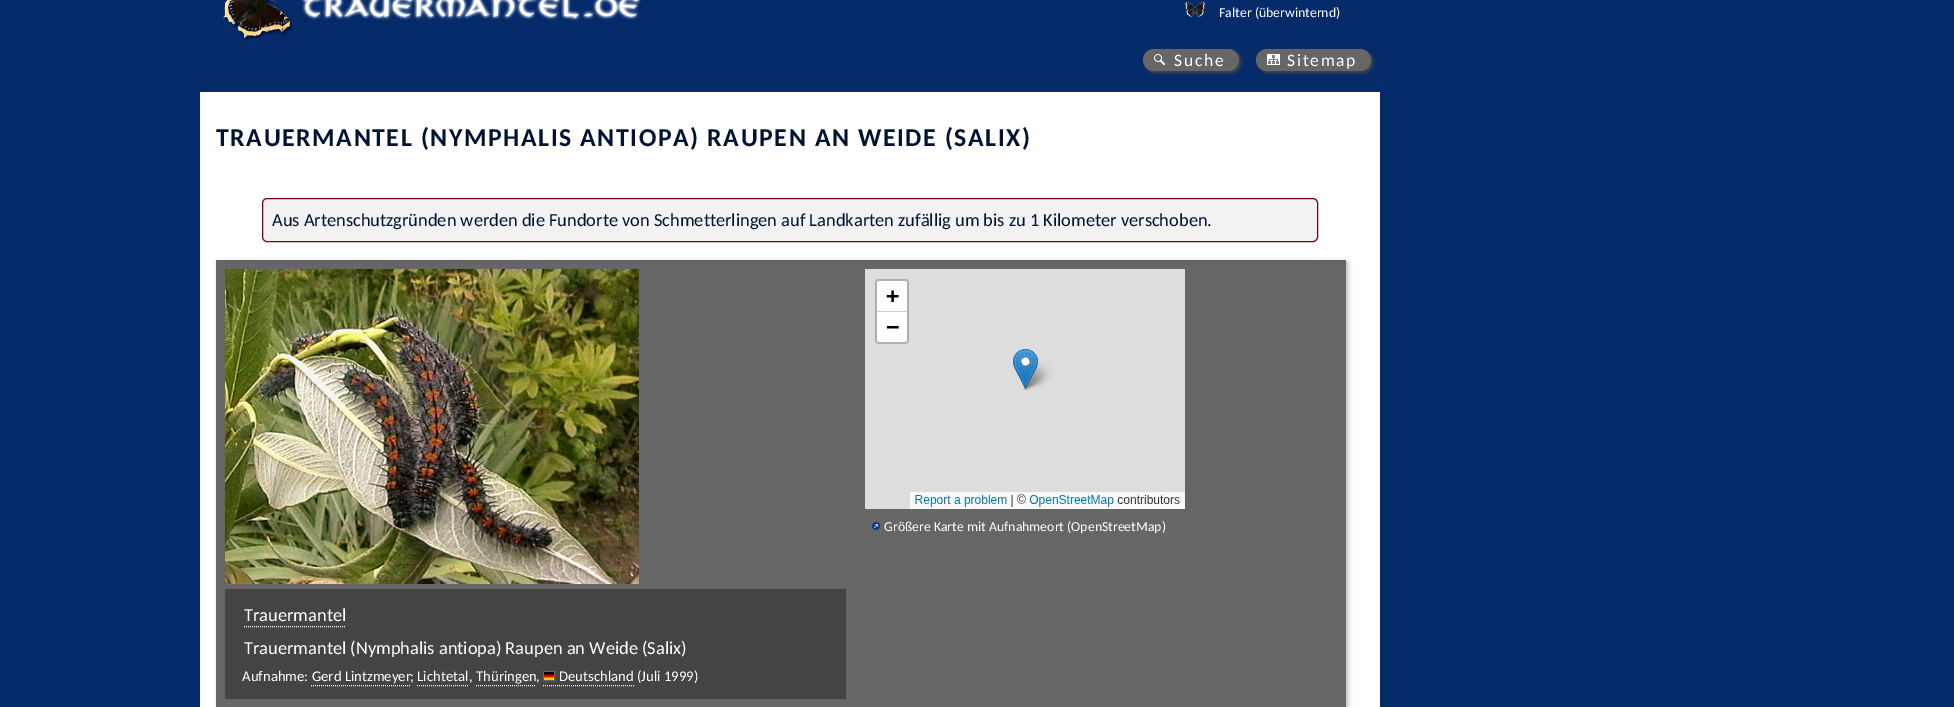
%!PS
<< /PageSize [1954 707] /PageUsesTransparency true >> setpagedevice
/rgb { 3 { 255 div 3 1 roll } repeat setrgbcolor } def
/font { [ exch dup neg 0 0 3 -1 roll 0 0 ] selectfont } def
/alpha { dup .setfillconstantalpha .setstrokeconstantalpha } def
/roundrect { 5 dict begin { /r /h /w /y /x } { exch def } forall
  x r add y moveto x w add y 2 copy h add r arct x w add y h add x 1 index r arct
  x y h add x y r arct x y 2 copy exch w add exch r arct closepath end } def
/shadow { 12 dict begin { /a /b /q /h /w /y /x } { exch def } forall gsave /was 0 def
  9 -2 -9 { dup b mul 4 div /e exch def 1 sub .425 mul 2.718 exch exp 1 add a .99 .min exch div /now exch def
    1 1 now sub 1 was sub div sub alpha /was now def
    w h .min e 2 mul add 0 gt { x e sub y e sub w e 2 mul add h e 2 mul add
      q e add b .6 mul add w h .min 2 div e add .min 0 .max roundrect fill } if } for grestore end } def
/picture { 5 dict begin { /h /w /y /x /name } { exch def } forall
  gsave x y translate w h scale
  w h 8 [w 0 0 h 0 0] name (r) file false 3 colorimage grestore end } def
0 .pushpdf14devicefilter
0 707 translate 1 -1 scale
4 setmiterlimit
5 43 107 rgb
0 0 1954 707 rectfill
(img/1.rgb) 223 0 70 41 picture
(img/2.rgb) 301 0 341 21 picture
(img/3.rgb) 1184 1 22 16 picture
68 68 68 rgb
1145 51 96 22 11 1.5 1 shadow
102 102 102 rgb
1143 49 96 22 11 roundrect fill
(img/4.rgb) 1154 54 12 12 picture
68 68 68 rgb
1258 51 115 22 11 1.5 1 shadow
102 102 102 rgb
1256 49 115 22 11 roundrect fill
(img/5.rgb) 1267 54 13 11 picture
255 255 255 rgb
200 92 1180 615 rectfill
242 242 242 rgb
262.5 198.5 1055 43 4.5 roundrect gsave fill grestore
116 0 21 rgb
stroke
185 185 185 rgb
218 262 1130 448 0 2.5 1 shadow
102 102 102 rgb
216 260 1130 447 rectfill
(img/6.rgb) 865 269 320 240 picture
(img/7.rgb) 872 522 8 8 picture
(img/8.rgb) 225 269 414 315 picture
68 68 68 rgb
225 589 621 110 rectfill
255 255 255 rgb
[1 1] 0 setdash
244 626.5 moveto 346 626.5 lineto stroke
543 685.5 moveto 634 685.5 lineto stroke
102 102 102 rgb
[] 0 setdash
543.5 671.5 11 9 rectstroke
(img/9.rgb) 544 672 10 8 picture
255 255 255 rgb
[1 1] 0 setdash
417 685.5 moveto 469 685.5 lineto stroke
476 685.5 moveto 536 685.5 lineto stroke
311 685.5 moveto 410 685.5 lineto stroke
/Carlito-Regular 13.8 font
1219 17 moveto (Falter \(überwinternd\)) show
/Carlito-Regular 17.5 font
1174 66 moveto 1.75 0 (Suche) ashow
1287 66 moveto 1.75 0 (Sitemap) ashow
/Carlito-Bold 25.75 font
1 19 50 rgb
216 146 moveto 1.6 0 (TRAUERMANTEL \(NYMPHALIS ANTIOPA\) RAUPEN AN WEIDE \(SALIX\)) ashow
/Carlito-Regular 18.4 font
272 226 moveto (Aus Artenschutzgründen werden die Fundorte von Schmetterlingen auf Landkarten zufällig um bis zu 1 Kilometer verschoben.) show
/Carlito-Regular 13.8 font
255 255 255 rgb
884 531 moveto (Größere Karte mit Aufnahmeort \(OpenStreetMap\)) show
/Carlito-Regular 18.4 font
244 621 moveto (Trauermantel) show
244 654 moveto (Trauermantel \(Nymphalis antiopa\) Raupen an Weide \(Salix\)) show
/Carlito-Regular 14.75 font
[
  [(Aufnahme: Gerd Lintzmeyer) 242 681]
  [(; Lichtetal) 410 681]
  [(, Thüringen) 469 681]
  [(,) 536 681]
  [(Deutschland) 559 681]
  [(\(Juli 1999\)) 637 681]
] { aload pop moveto show } forall
.poppdf14devicefilter showpage
